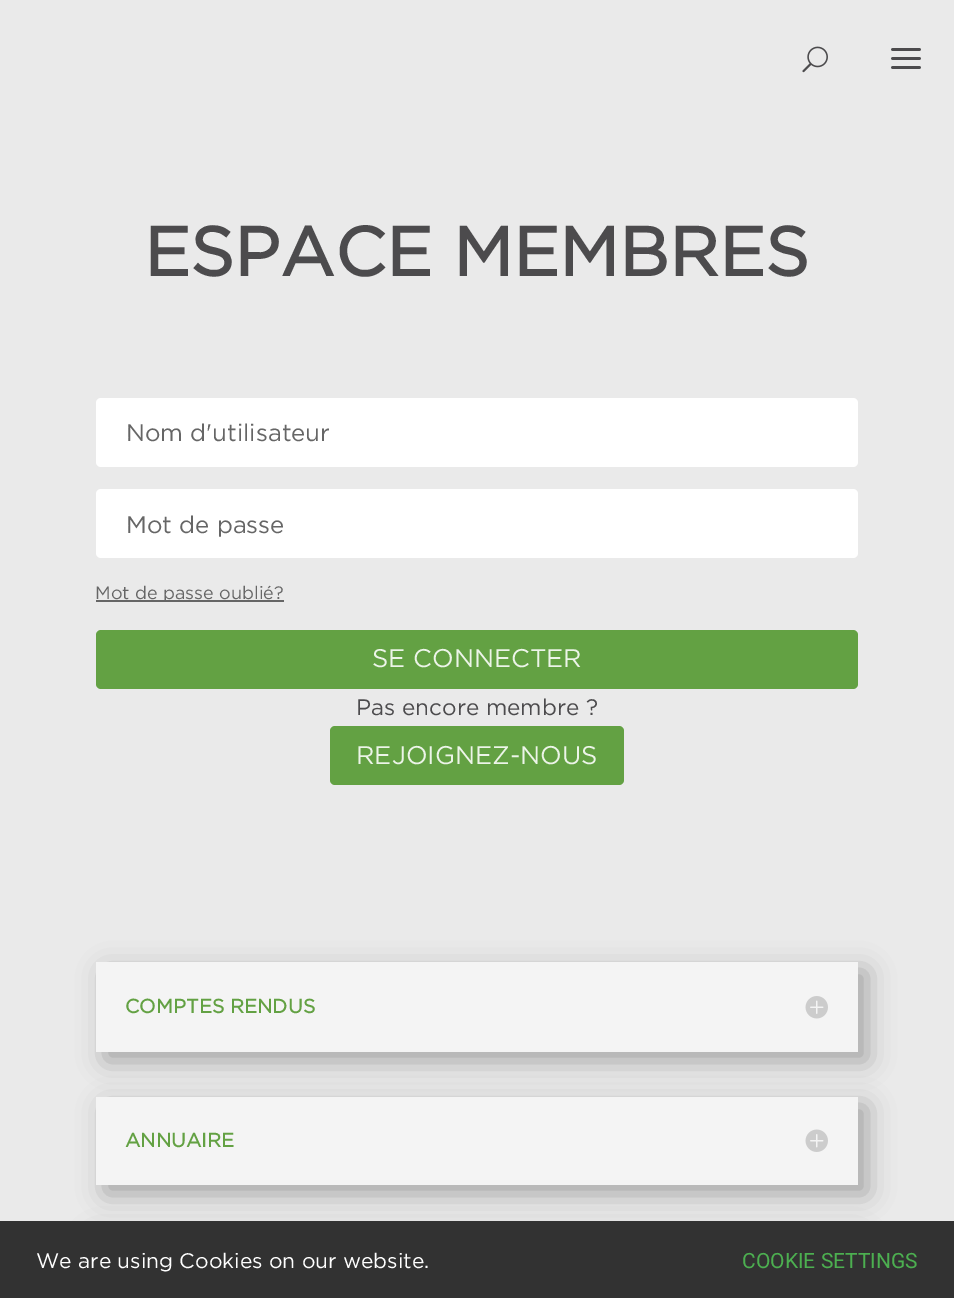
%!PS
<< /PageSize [954 1298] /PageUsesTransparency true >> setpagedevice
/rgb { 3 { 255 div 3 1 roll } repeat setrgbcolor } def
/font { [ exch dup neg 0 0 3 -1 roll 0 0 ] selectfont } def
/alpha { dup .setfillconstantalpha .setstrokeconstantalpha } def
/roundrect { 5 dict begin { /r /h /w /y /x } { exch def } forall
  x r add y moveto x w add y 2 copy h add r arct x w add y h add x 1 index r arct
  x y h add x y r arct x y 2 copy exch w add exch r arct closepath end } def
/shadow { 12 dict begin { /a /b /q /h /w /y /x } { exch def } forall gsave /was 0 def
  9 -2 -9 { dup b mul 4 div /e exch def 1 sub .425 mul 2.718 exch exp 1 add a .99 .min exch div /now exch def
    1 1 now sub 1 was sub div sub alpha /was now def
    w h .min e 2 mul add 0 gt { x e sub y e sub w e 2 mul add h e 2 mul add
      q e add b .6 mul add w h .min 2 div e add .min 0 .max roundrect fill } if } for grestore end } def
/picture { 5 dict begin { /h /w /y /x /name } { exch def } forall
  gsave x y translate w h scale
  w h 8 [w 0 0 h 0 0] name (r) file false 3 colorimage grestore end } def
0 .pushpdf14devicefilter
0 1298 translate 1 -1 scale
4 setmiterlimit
234 234 234 rgb
0 0 954 1298 rectfill
(img/1.rgb) 802 46 26 27 picture
(img/2.rgb) 891 48 30 21 picture
255 255 255 rgb
96 398 762 69 5 roundrect fill
96 489 762 69 5 roundrect fill
102 102 102 rgb
96 600 188 2 rectfill
99 161 67 rgb
96 630 762 59 5 roundrect fill
330 726 294 59 5 roundrect fill
0 0 0 rgb
105 971 762 90 0 13.5 0.3 shadow
244 244 244 rgb
96 962 762 90 rectfill
(img/3.rgb) 805 996 23 23 picture
0 0 0 rgb
105 1106 762 88 0 13.5 0.3 shadow
244 244 244 rgb
96 1097 762 88 rectfill
(img/4.rgb) 805 1129 23 23 picture
0 0 0 rgb
96 1242 762 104 0 16 0.3 shadow
50 50 50 rgb
0 1221 954 77 rectfill
/Gotham-Bold 69 font
76 75 77 rgb
144 276 moveto (ESPACE MEMBRES) show
/Gotham-Regular 24 font
102 102 102 rgb
126 441 moveto (Nom d'utilisateur) show
126 533 moveto (Mot de passe) show
/Gotham-Regular 18 font
95 599 moveto (Mot de passe oublié?) show
/Gotham-Regular 25.5 font
236 244 232 rgb
372 667 moveto (SE CONNECTER) show
/Gotham-Regular 22.5 font
76 75 77 rgb
356 715 moveto (Pas encore membre ?) show
/Gotham-Regular 25.5 font
236 244 232 rgb
356 764 moveto (REJOIGNEZ-NOUS) show
/Gotham-Bold 19.5 font
99 161 67 rgb
125 1013 moveto (COMPTES RENDUS) show
125 1147 moveto (ANNUAIRE) show
/Gotham-Regular 21 font
255 255 255 rgb
36 1268 moveto (We are using Cookies on our website.) show
/Roboto-Regular 21 font
76 175 80 rgb
742 1268 moveto (COOKIE SETTINGS) show
.poppdf14devicefilter showpage
